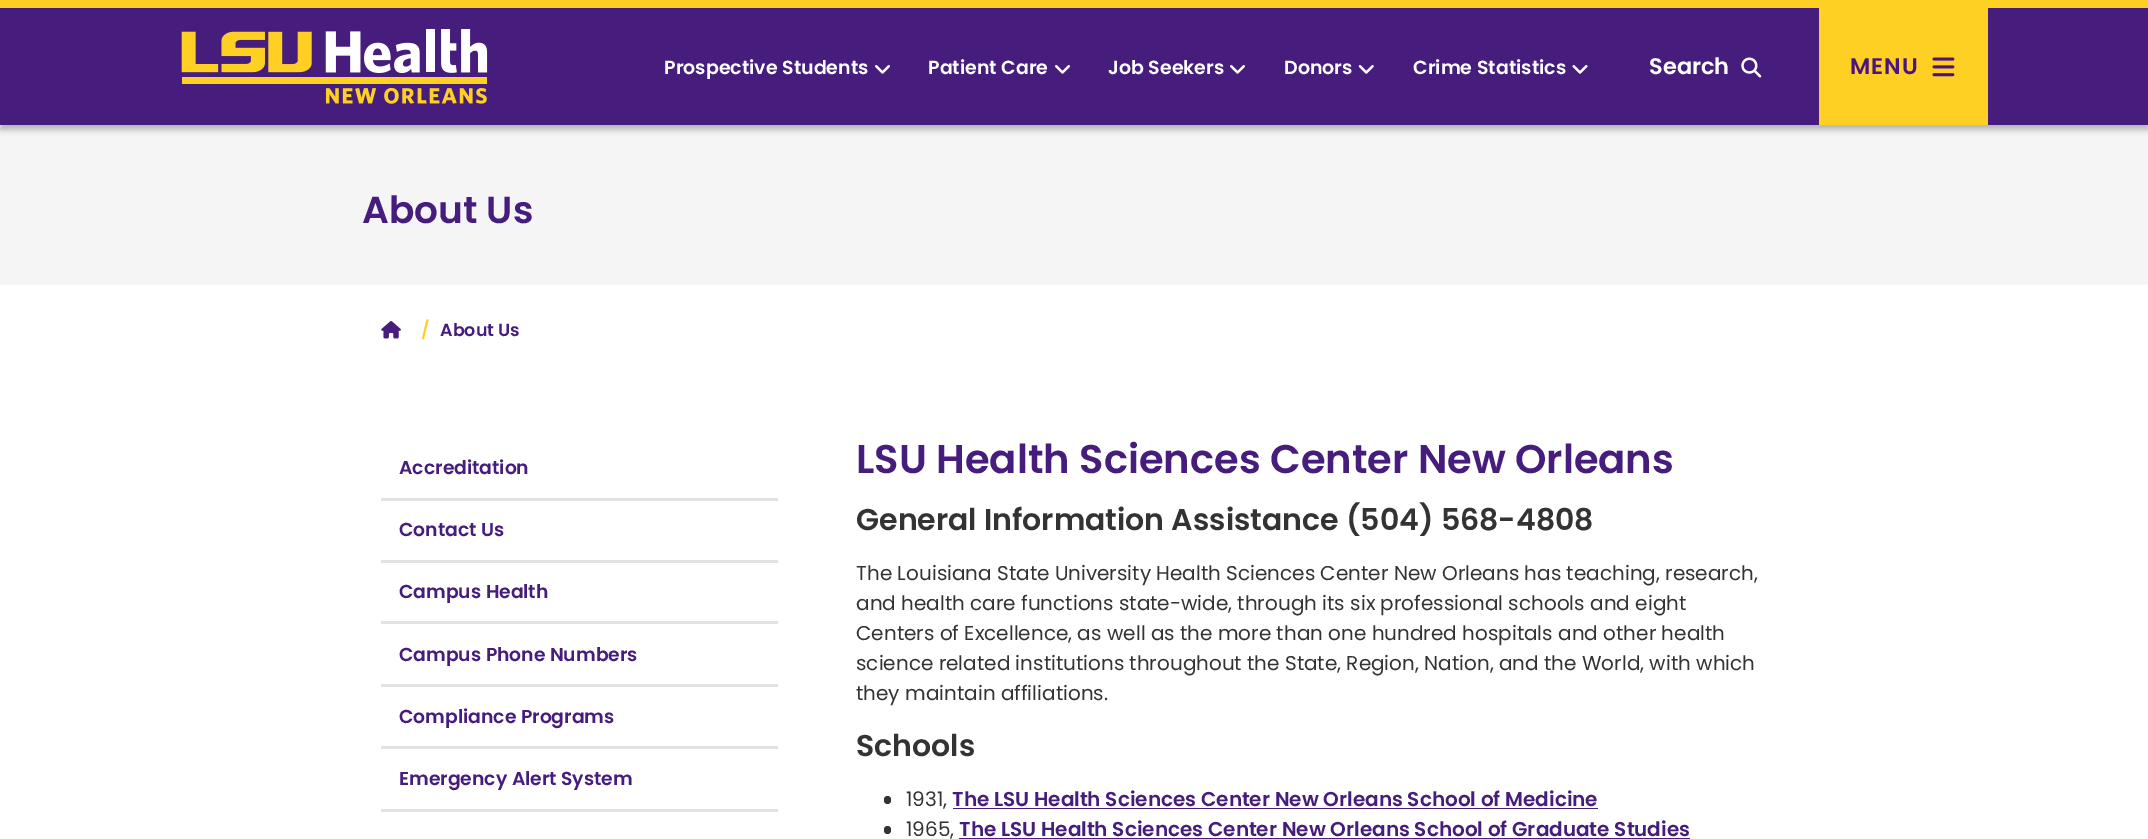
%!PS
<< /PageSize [2148 839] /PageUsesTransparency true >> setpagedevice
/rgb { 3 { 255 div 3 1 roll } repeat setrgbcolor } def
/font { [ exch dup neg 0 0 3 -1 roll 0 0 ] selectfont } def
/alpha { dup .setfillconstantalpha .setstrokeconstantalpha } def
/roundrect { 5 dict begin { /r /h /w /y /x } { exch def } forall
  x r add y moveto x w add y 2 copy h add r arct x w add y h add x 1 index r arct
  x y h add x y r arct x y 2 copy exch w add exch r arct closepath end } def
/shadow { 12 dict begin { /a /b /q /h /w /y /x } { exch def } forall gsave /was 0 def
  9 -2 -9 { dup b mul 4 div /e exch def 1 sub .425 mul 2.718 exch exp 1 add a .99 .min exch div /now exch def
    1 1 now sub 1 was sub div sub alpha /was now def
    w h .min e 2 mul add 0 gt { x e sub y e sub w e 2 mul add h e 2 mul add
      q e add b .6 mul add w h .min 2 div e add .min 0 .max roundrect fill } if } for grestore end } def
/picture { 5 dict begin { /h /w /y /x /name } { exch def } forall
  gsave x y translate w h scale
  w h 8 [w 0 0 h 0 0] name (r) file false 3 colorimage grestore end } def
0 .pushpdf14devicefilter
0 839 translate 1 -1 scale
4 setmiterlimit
255 255 255 rgb
0 0 2148 839 rectfill
245 245 245 rgb
0 125 2148 160 rectfill
0 0 0 rgb
0 5 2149 125 0 3 0.25 shadow
70 29 124 rgb
0 8 2148 117 rectfill
253 208 35 rgb
0 0 2148 8 rectfill
(img/1.rgb) 181 29 307 75 picture
(img/2.rgb) 875 65 15 9 picture
(img/2.rgb) 1055 65 15 9 picture
(img/2.rgb) 1230 65 15 9 picture
(img/3.rgb) 1358 65 16 9 picture
(img/4.rgb) 1572 65 16 9 picture
(img/5.rgb) 1741 57 21 21 picture
1819 8 169 117 rectfill
(img/6.rgb) 1932 57 23 20 picture
(img/7.rgb) 381 321 20 18 picture
[
  [381 498 397 3 226 226 226]
  [381 560 397 3 226 226 226]
  [381 621 397 3 226 226 226]
  [381 684 397 3 226 226 226]
  [381 746 397 3 226 226 226]
  [381 809 397 3 226 226 226]
] { aload pop rgb rectfill } forall
51 51 51 rgb
884 796 7 8 3.5 roundrect fill
70 29 124 rgb
953 808 645 1 rectfill
51 51 51 rgb
884 826 7 8 3.5 roundrect fill
70 29 124 rgb
959 838 731 1 rectfill
/Poppins-SemiBold 19 font
255 255 255 rgb
[
  [(Prospective Students) 664 74]
  [(Patient Care) 928 74]
  [(Job Seekers) 1108 74]
  [(Donors) 1284 74]
  [(Crime Statistics) 1413 74]
] { aload pop moveto show } forall
/Poppins-SemiBold 22.5 font
1649 74 moveto (Search) show
77 20 129 rgb
1850 74 moveto 1 0 (MENU) ashow
/Poppins-SemiBold 37.5 font
70 29 124 rgb
362 223 moveto (About Us) show
/Poppins-SemiBold 17.5 font
253 208 35 rgb
421 336 moveto (/) show
70 29 124 rgb
440 336 moveto (About Us) show
/Poppins-SemiBold 18.75 font
[
  [(Accreditation) 399 474]
  [(Contact Us) 399 536]
  [(Campus Health) 399 598]
  [(Campus Phone Numbers) 399 661]
  [(Compliance Programs) 399 723]
  [(Emergency Alert System) 399 785]
] { aload pop moveto show } forall
/Poppins-SemiBold 40 font
856 473 moveto (LSU Health Sciences Center New Orleans) show
/Poppins-SemiBold 30 font
51 51 51 rgb
856 530 moveto (General Information Assistance \(504\) 568-4808) show
/Poppins-Regular 20 font
[
  [(The Louisiana State University Health Sciences Center New Orleans has teaching, research,) 856 580]
  [(and health care functions state-wide, through its six professional schools and eight) 856 610]
  [(Centers of Excellence, as well as the more than one hundred hospitals and other health) 856 640]
  [(science related institutions throughout the State, Region, Nation, and the World, with which) 856 670]
  [(they maintain affiliations.) 856 700]
] { aload pop moveto show } forall
/Poppins-SemiBold 30 font
856 756 moveto (Schools) show
/Poppins-Regular 20 font
906 806 moveto (1931,) show
/Poppins-SemiBold 20 font
70 29 124 rgb
952 806 moveto (The LSU Health Sciences Center New Orleans School of Medicine) show
/Poppins-Regular 20 font
51 51 51 rgb
906 836 moveto (1965,) show
/Poppins-SemiBold 20 font
70 29 124 rgb
959 836 moveto (The LSU Health Sciences Center New Orleans School of Graduate Studies) show
.poppdf14devicefilter showpage
